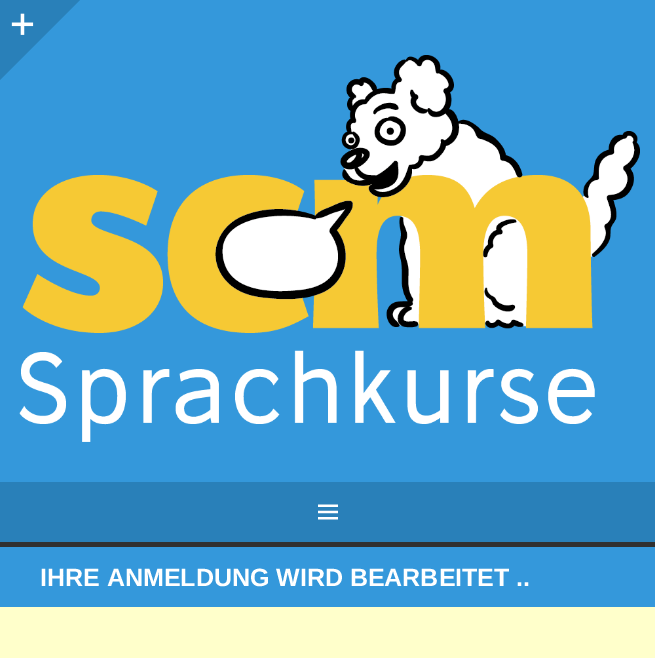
%!PS
<< /PageSize [655 658] >> setpagedevice
/rgb { 3 { 255 div 3 1 roll } repeat setrgbcolor } def
/font { [ exch dup neg 0 0 3 -1 roll 0 0 ] selectfont } def
/picture { 5 dict begin { /h /w /y /x /name } { exch def } forall
  gsave x y translate w h scale
  w h 8 [w 0 0 h 0 0] name (r) file false 3 colorimage grestore end } def
0 658 translate 1 -1 scale
4 setmiterlimit
52 152 219 rgb
0 0 655 658 rectfill
41 128 185 rgb
0 0 40 40 rectfill
(img/1.rgb) 11 13 23 22 picture
40 0 moveto 80 0 lineto 40 40 lineto closepath fill
(img/2.rgb) 19 55 621 387 picture
0 40 moveto 40 40 lineto 0 80 lineto closepath fill
0 482 655 60 rectfill
48 48 48 rgb
0 542 655 5 rectfill
(img/3.rgb) 318 504 20 16 picture
255 255 203 rgb
0 607 655 51 rectfill
/LiberationSans-Bold 25 font
255 255 255 rgb
40 586 moveto (IHRE ANMELDUNG WIRD BEARBEITET ..) show
showpage
